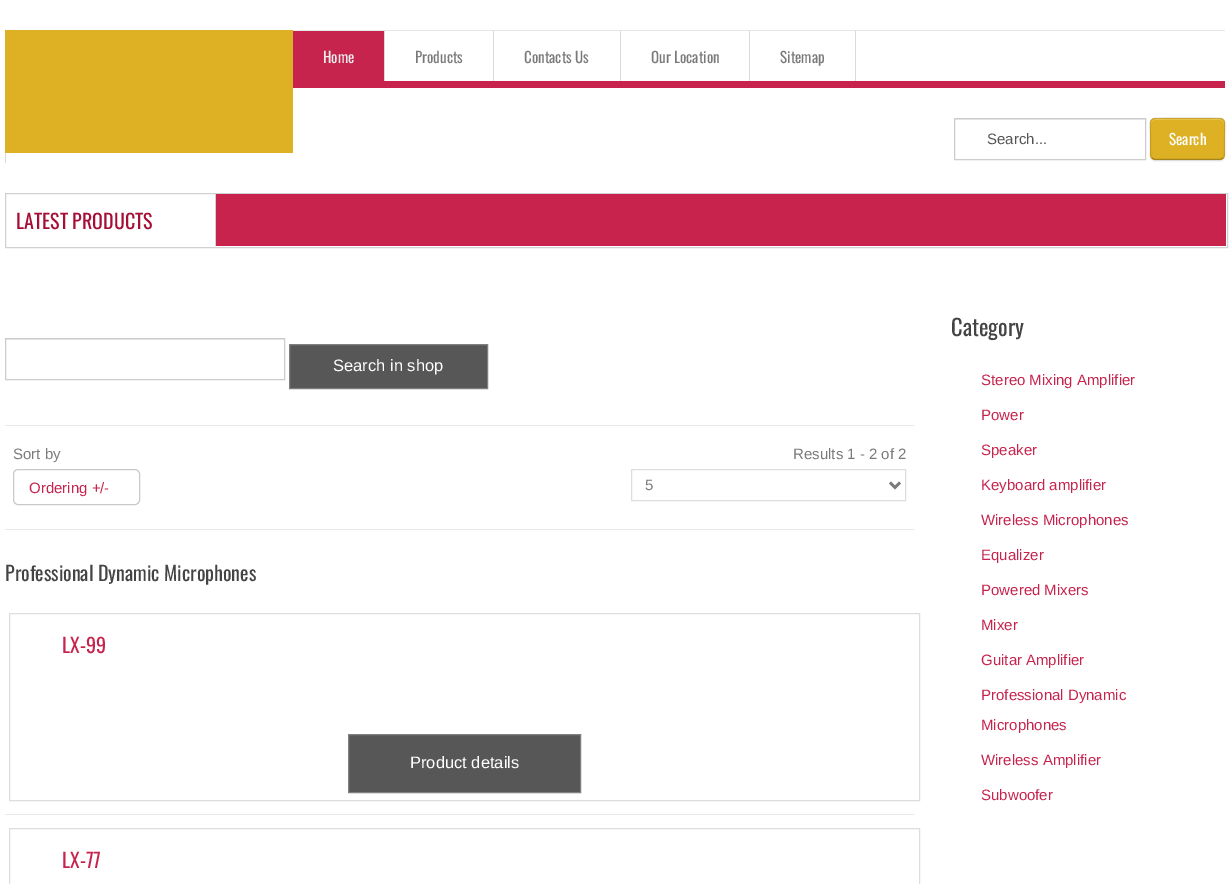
%!PS
<< /PageSize [1230 884] /PageUsesTransparency true >> setpagedevice
/rgb { 3 { 255 div 3 1 roll } repeat setrgbcolor } def
/font { [ exch dup neg 0 0 3 -1 roll 0 0 ] selectfont } def
/alpha { dup .setfillconstantalpha .setstrokeconstantalpha } def
/roundrect { 5 dict begin { /r /h /w /y /x } { exch def } forall
  x r add y moveto x w add y 2 copy h add r arct x w add y h add x 1 index r arct
  x y h add x y r arct x y 2 copy exch w add exch r arct closepath end } def
/shadow { 12 dict begin { /a /b /q /h /w /y /x } { exch def } forall gsave /was 0 def
  9 -2 -9 { dup b mul 4 div /e exch def 1 sub .425 mul 2.718 exch exp 1 add a .99 .min exch div /now exch def
    1 1 now sub 1 was sub div sub alpha /was now def
    w h .min e 2 mul add 0 gt { x e sub y e sub w e 2 mul add h e 2 mul add
      q e add b .6 mul add w h .min 2 div e add .min 0 .max roundrect fill } if } for grestore end } def
0 .pushpdf14devicefilter
0 884 translate 1 -1 scale
4 setmiterlimit
255 255 255 rgb
0 0 1230 884 rectfill
[
  [5 30 288 123 222 177 36]
  [293 30 932 1 230 230 230]
  [293 81 932 7 199 35 77]
  [5 153 1 10 217 217 217]
  [293 31 91 50 198 35 77]
  [384 31 1 50 217 217 217]
  [493 31 1 50 217 217 217]
  [620 31 1 50 217 217 217]
  [749 31 1 50 217 217 217]
  [855 31 1 50 217 217 217]
  [955 119 190 1 236 236 236]
] { aload pop rgb rectfill } forall
204 204 204 rgb
954.5 118.5 191 41 rectstroke
0 0 0 rgb
1150 119 75 42 5 1 0.1 shadow
222 177 36 rgb
1150 118 75 42 5 roundrect fill
229 193 80 rgb
1155 120 moveto 1220 120 lineto 1222 120 1224 122 1224 124 curveto 1224 116 1214 119 1209 119 curveto 1166 119 lineto 1161 119 1151 116 1151 124 curveto 1151 122 1153 120 1155 120 curveto closepath fill
0.25 alpha
0 0 0 rgb
1.2 setlinewidth
1223 158 moveto 1220.5 159.5 lineto 1154.5 159.5 lineto 1152 158 lineto stroke
0.1 alpha
1152 158 moveto 1150 156 1150.5 152 1150.5 149.5 curveto 1150.5 139 lineto 1150.5 117.5 1146.5 118 1166 118 curveto 1209 118 lineto 1228.5 118 1224.5 117.5 1224.5 139 curveto 1224.5 149.5 lineto 1224.5 152 1225 156 1223 158 curveto stroke
1 alpha
209 209 209 rgb
1 setlinewidth
5.5 193.5 1222 54 rectstroke
[
  [216 194 1010 52 199 35 77]
  [215 194 1 52 209 209 209]
  [6 339 278 1 236 236 236]
] { aload pop rgb rectfill } forall
204 204 204 rgb
5.5 338.5 279 41 rectstroke
87 87 87 rgb
289.5 344.5 moveto 487.5 344.5 lineto 487.5 388.5 lineto 289.5 388.5 lineto closepath gsave fill grestore
128 128 128 rgb
stroke
233 232 232 rgb
5 425 909 1 rectfill
5 529 909 1 rectfill
202 201 201 rgb
13.5 469.5 126 35 4.5 roundrect stroke
221 221 221 rgb
631.5 469.5 274 31 rectstroke
122 122 122 rgb
2.5 setlinewidth
890 482.5 moveto 895 487.5 lineto 900 482.5 lineto stroke
221 221 221 rgb
1 setlinewidth
9.5 613.5 910 187 rectstroke
87 87 87 rgb
348.5 734.5 moveto 580.5 734.5 lineto 580.5 792.5 lineto 348.5 792.5 lineto closepath gsave fill grestore
128 128 128 rgb
stroke
233 232 232 rgb
5 814 909 1 rectfill
221 221 221 rgb
9.5 828.5 910 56 rectstroke
/Oswald-Regular 15 font
238 238 238 rgb
323 63 moveto (Home) show
122 122 122 rgb
[
  [(Products) 415 63]
  [(Contacts Us) 524 63]
  [(Our Location) 651 63]
  [(Sitemap) 780 63]
] { aload pop moveto show } forall
/LiberationSans-Regular 15 font
85 85 85 rgb
987 144 moveto (Search...) show
/Oswald-Regular 15 font
255 255 255 rgb
1169 145 moveto (Search) show
/Oswald-Regular 20 font
165 14 53 rgb
16 229 moveto (LATEST PRODUCTS) show
/LiberationSans-Regular 16.5 font
255 255 255 rgb
333 371 moveto (Search in shop) show
/LiberationSans-Regular 15 font
122 122 122 rgb
13 459 moveto (Sort by) show
198 35 77 rgb
29 493 moveto (Ordering +/-) show
122 122 122 rgb
793 459 moveto (Results 1 - 2 of 2) show
645 490 moveto (5) show
/Oswald-Regular 20 font
68 68 68 rgb
5 581 moveto (Professional Dynamic Microphones) show
198 35 77 rgb
62 653 moveto (LX-99) show
/LiberationSans-Regular 16.5 font
255 255 255 rgb
410 768 moveto (Product details) show
/Oswald-Regular 20 font
198 35 77 rgb
62 868 moveto (LX-77) show
/Oswald-Regular 22.5 font
68 68 68 rgb
951 336 moveto (Category) show
/LiberationSans-Regular 15 font
198 35 77 rgb
[
  [(Stereo Mixing Amplifier) 981 385]
  [(Power) 981 420]
  [(Speaker) 981 455]
  [(Keyboard amplifier) 981 490]
  [(Wireless Microphones) 981 525]
  [(Equalizer) 981 560]
  [(Powered Mixers) 981 595]
  [(Mixer) 981 630]
  [(Guitar Amplifier) 981 665]
  [(Professional Dynamic) 981 700]
  [(Microphones) 981 730]
  [(Wireless Amplifier) 981 765]
  [(Subwoofer) 981 800]
] { aload pop moveto show } forall
.poppdf14devicefilter showpage
